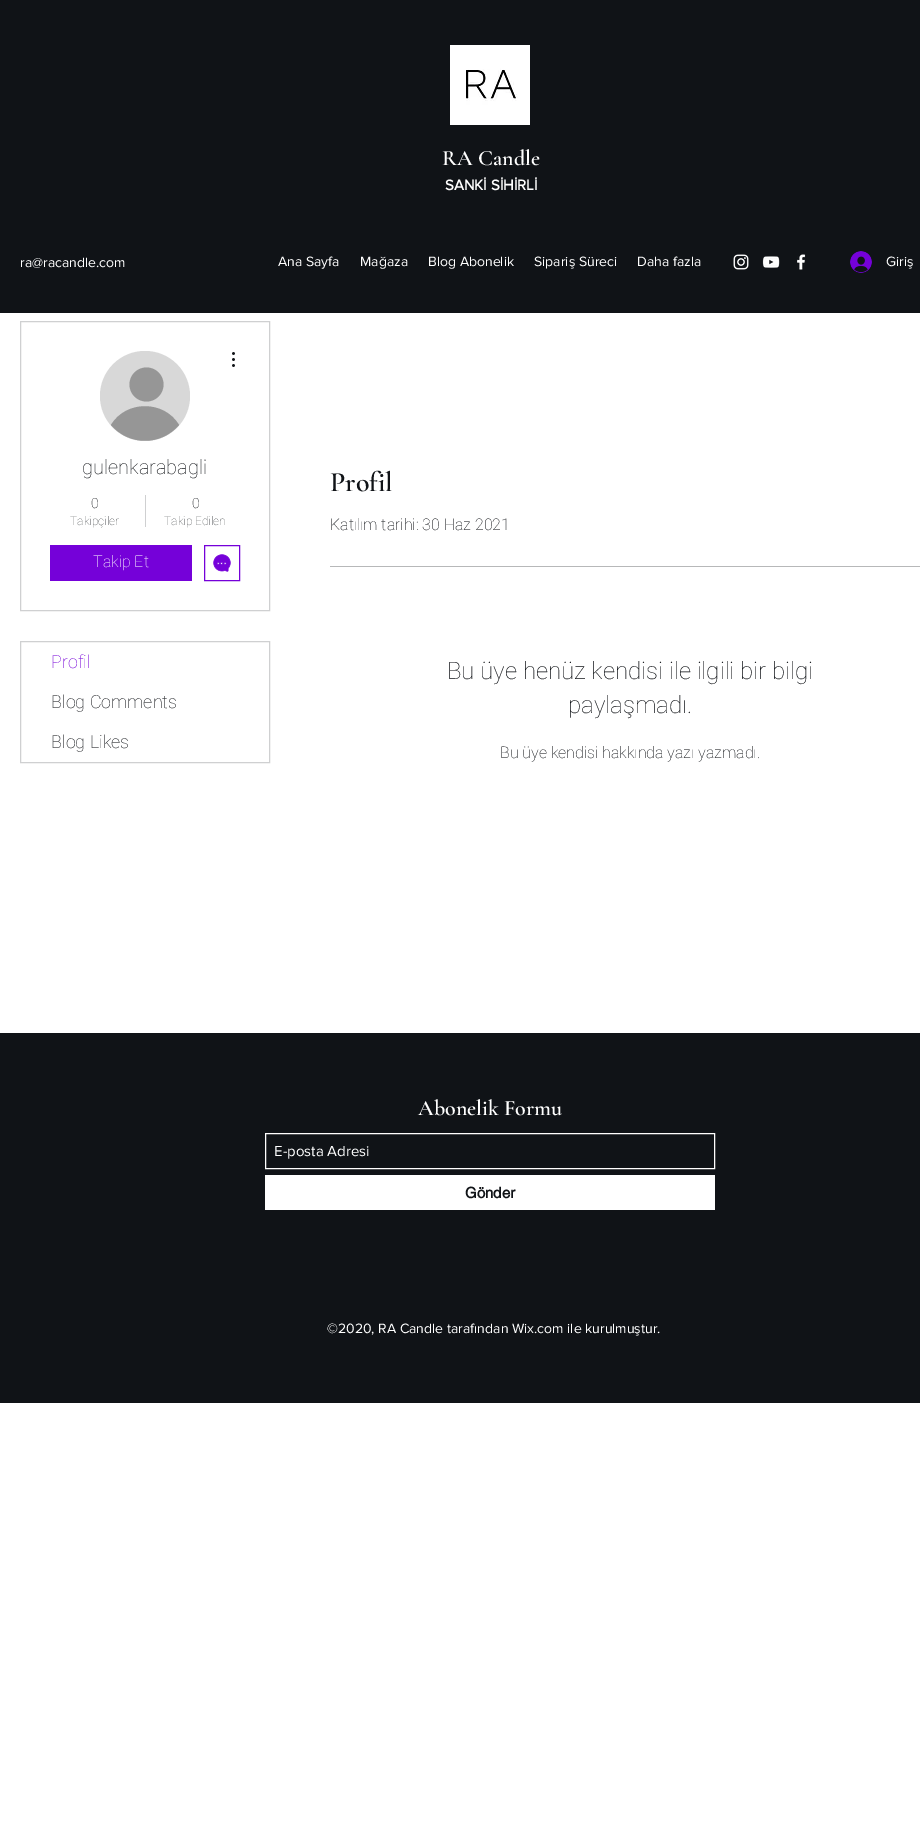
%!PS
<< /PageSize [920 1840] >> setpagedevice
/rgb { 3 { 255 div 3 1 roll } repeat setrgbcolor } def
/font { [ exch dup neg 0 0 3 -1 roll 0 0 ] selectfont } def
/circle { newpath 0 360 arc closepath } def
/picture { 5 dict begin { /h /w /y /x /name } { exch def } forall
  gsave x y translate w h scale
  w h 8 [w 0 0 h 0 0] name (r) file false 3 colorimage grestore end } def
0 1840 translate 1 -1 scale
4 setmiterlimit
255 255 255 rgb
0 0 920 1840 rectfill
16 19 23 rgb
0 0 920 313 rectfill
(img/1.rgb) 450 45 80 80 picture
(img/2.rgb) 733 254 16 16 picture
(img/3.rgb) 762 256 18 12 picture
(img/4.rgb) 797 254 9 16 picture
(img/5.rgb) 850 251 22 22 picture
207 208 209 rgb
20.5 321.5 249 289 rectstroke
216 216 216 rgb
145 396 45 circle fill
150 150 150 rgb
146.5 384.5 17 circle fill
179 425 moveto 161 446 129 446 111 425 curveto 126 400 164 400 179 425 curveto closepath fill
(img/6.rgb) 232 352 3 15 picture
207 208 209 rgb
145 495 1 32 rectfill
117 1 217 rgb
50 545 142 36 rectfill
204.5 545.5 35 35 rectstroke
(img/7.rgb) 213 554 18 18 picture
207 208 209 rgb
20.5 641.5 249 121 rectstroke
183 184 185 rgb
330 566 590 1 rectfill
16 19 23 rgb
0 1033 920 370 rectfill
255 255 255 rgb
265.5 1133.5 449 35 rectstroke
265 1175 450 35 rectfill
/CormorantGaramond-SemiBold 22 font
442 165 moveto (RA Candle) show
/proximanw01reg-Bold 15 font
445 190 moveto (SANKİ SİHİRLİ) show
/proximanw01reg-Regular 14 font
[
  [(ra@racandle.com) 20 267]
  [(Ana Sayfa) 278 266]
  [(Mağaza) 360 266]
  [(Blog Abonelik) 428 266]
  [(Sipariş Süreci) 534 266]
  [(Daha fazla) 637 266]
  [(Giriş) 886 266]
] { aload pop moveto show } forall
/Roboto-Thin 20 font
16 19 23 rgb
82 474 moveto (gulenkarabagli) show
/Roboto-Thin 14 font
91 508 moveto (0) show
/Roboto-Thin 12 font
88 90 93 rgb
70 525 moveto (Takipçiler) show
/Roboto-Thin 14 font
16 19 23 rgb
192 508 moveto (0) show
/Roboto-Thin 12 font
88 90 93 rgb
164 525 moveto (Takip Edilen) show
/Roboto-Thin 16 font
255 255 255 rgb
93 567 moveto (Takip Et) show
/Roboto-Thin 18 font
117 1 217 rgb
51 668 moveto (Profil) show
16 19 23 rgb
51 708 moveto (Blog Comments) show
51 748 moveto (Blog Likes) show
/CormorantGaramond-SemiBold 28 font
330 491 moveto (Profil) show
/Roboto-Thin 16 font
330 530 moveto (Katılım tarihi: 30 Haz 2021) show
/Roboto-Thin 24 font
447 679 moveto (Bu üye henüz kendisi ile ilgili bir bilgi) show
568 713 moveto (paylaşmadı.) show
/Roboto-Thin 16 font
500 758 moveto (Bu üye kendisi hakkında yazı yazmadı.) show
/CormorantGaramond-SemiBold 22 font
255 255 255 rgb
418 1115 moveto (Abonelik Formu) show
/proximanw01reg-Regular 15 font
274 1156 moveto (E-posta Adresi) show
/helvetica-Bold 15 font
16 19 23 rgb
465 1198 moveto (Gönder) show
/proximanw01reg-Regular 14 font
255 255 255 rgb
327 1333 moveto (©2020, RA Candle tarafından Wix.com ile kurulmuştur.) show
showpage
